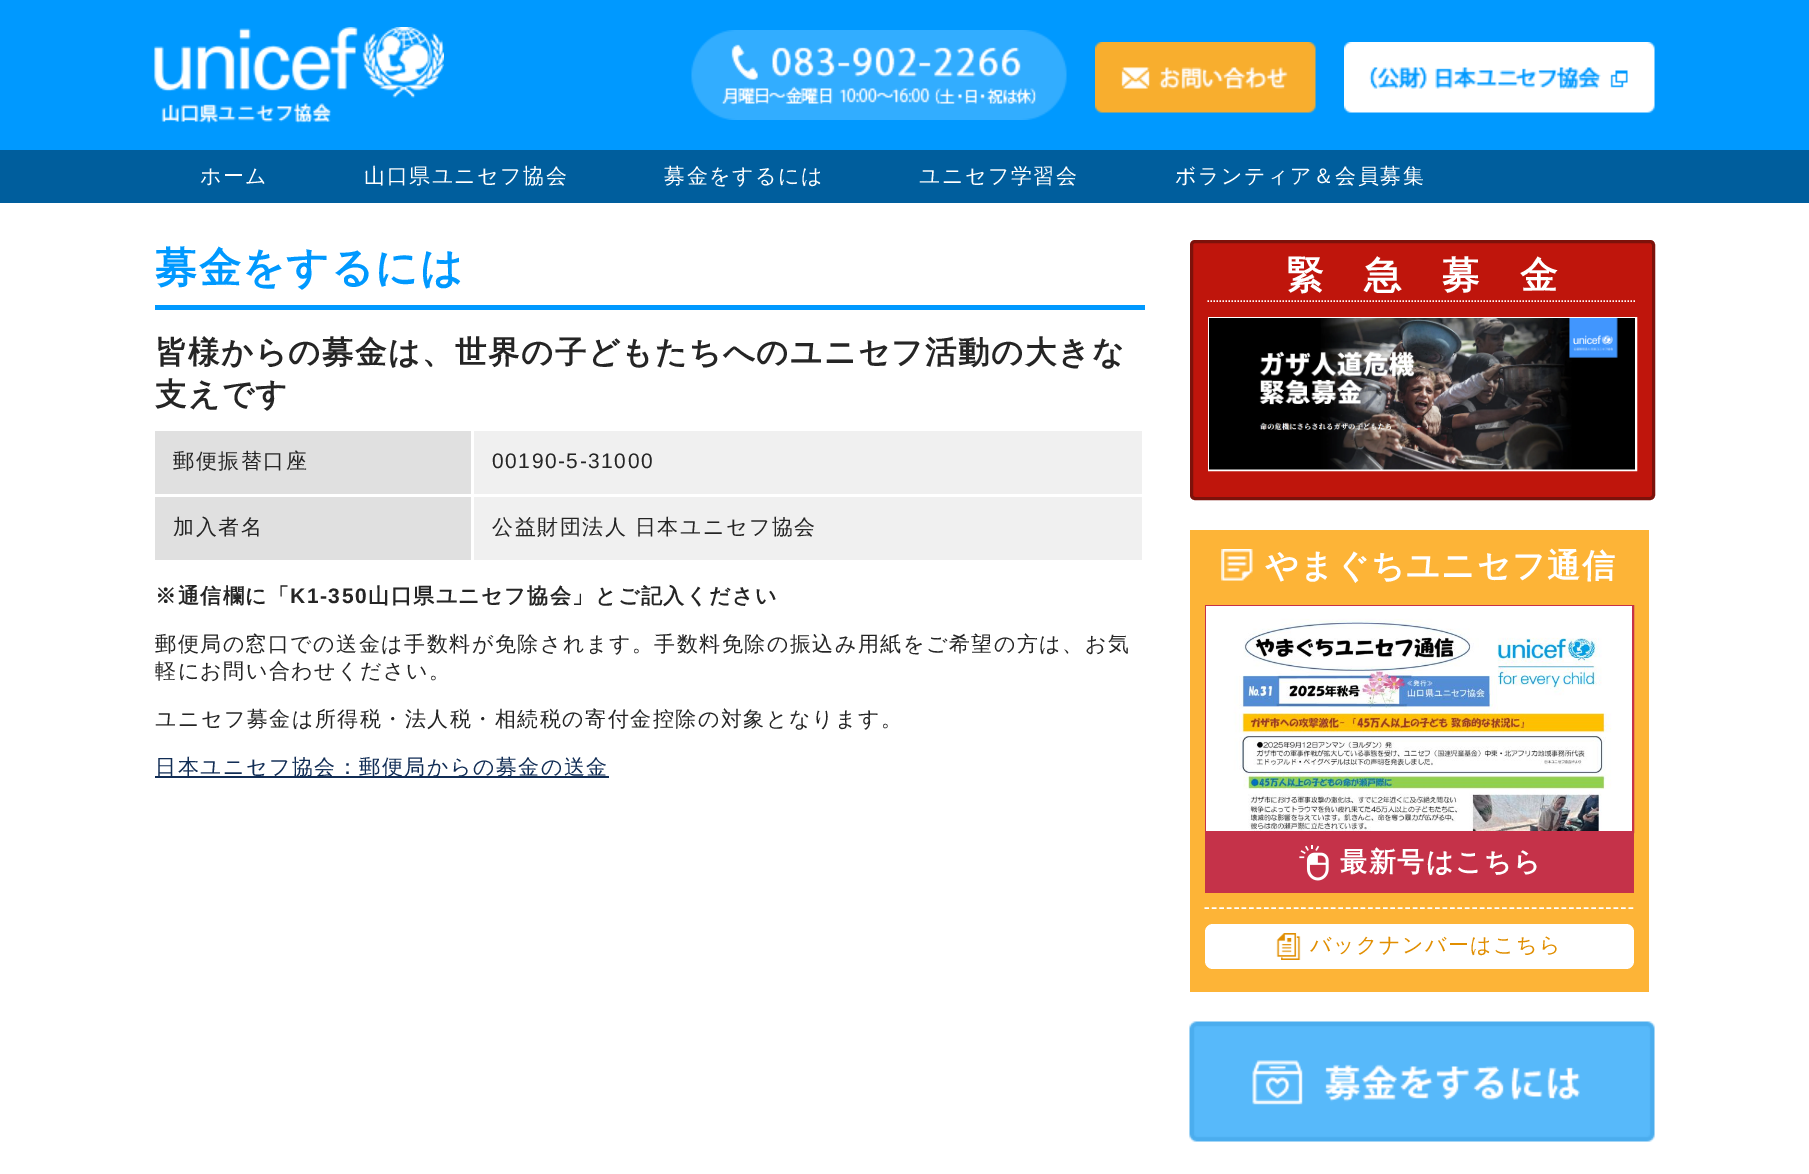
%!PS
<< /PageSize [1809 1174] >> setpagedevice
/rgb { 3 { 255 div 3 1 roll } repeat setrgbcolor } def
/font { [ exch dup neg 0 0 3 -1 roll 0 0 ] selectfont } def
/roundrect { 5 dict begin { /r /h /w /y /x } { exch def } forall
  x r add y moveto x w add y 2 copy h add r arct x w add y h add x 1 index r arct
  x y h add x y r arct x y 2 copy exch w add exch r arct closepath end } def
/picture { 5 dict begin { /h /w /y /x /name } { exch def } forall
  gsave x y translate w h scale
  w h 8 [w 0 0 h 0 0] name (r) file false 3 colorimage grestore end } def
0 1174 translate 1 -1 scale
4 setmiterlimit
255 255 255 rgb
0 0 1809 1174 rectfill
0 153 255 rgb
0 0 1809 150 rectfill
(img/1.rgb) 154 27 290 97 picture
(img/2.rgb) 691 30 376 90 picture
(img/3.rgb) 1095 42 221 71 picture
(img/4.rgb) 1344 42 311 71 picture
[
  [0 150 1809 53 0 94 157]
  [155 305 990 5 0 153 255]
  [155 431 316 63 224 224 224]
  [474 431 668 63 240 240 240]
  [155 497 316 63 224 224 224]
  [474 497 668 63 240 240 240]
  [155 776 454 2 17 45 85]
] { aload pop rgb rectfill } forall
191 21 12 rgb
1191.5 241.5 462 257 3.5 roundrect gsave fill grestore
124 18 11 rgb
3 setlinewidth
stroke
255 255 255 rgb
1.5 setlinewidth
[1.5 1.5] 0 setdash
1207.5 301 moveto 1636.5 301 lineto stroke
2 setlinewidth
[] 0 setdash
1209 318 427 152 rectstroke
(img/5.rgb) 1209 318 426 152 picture
253 180 55 rgb
1190 530 459 462 rectfill
(img/6.rgb) 1221 549 32 32 picture
197 50 73 rgb
1206 606 427 226 rectstroke
(img/7.rgb) 1206 606 426 225 picture
255 255 255 rgb
1.5 setlinewidth
[4.5 2.94] 0 setdash
1204.5 908 moveto 1633.5 908 lineto stroke
197 50 73 rgb
1205 833 429 60 rectfill
(img/8.rgb) 1299 845 30 36 picture
255 255 255 rgb
1205 924 429 45 8 roundrect fill
(img/9.rgb) 1276 933 25 27 picture
(img/10.rgb) 1189 1021 466 121 picture
/WenQuanYiZenHei-Medium 21 font
200 183 moveto 1.5 0 (ホーム) ashow
364 183 moveto 1.5 0 (山口県ユニセフ協会) ashow
664 183 moveto 1.5 0 (募金をするには) ashow
919 183 moveto 1.5 0 (ユニセフ学習会) ashow
1175 183 moveto 1.5 0 (ボランティア＆会員募集) ashow
/WenQuanYiZenHei-Bold 42 font
0 153 255 rgb
155 282 moveto 1.5 0 (募金をするには) ashow
/WenQuanYiZenHei-Bold 31.5 font
37 37 37 rgb
155 363 moveto 1.5 0 (皆様からの募金は、世界の子どもたちへのユニセフ活動の大きな) ashow
155 405 moveto 1.5 0 (支えです) ashow
/WenQuanYiZenHei-Medium 21 font
173 468 moveto 1.5 0 (郵便振替口座) ashow
/LiberationSans-Regular 21 font
492 468 moveto 1.5 0 (00190-5-31000) ashow
/WenQuanYiZenHei-Medium 21 font
173 534 moveto 1.5 0 (加入者名) ashow
492 534 moveto 1.5 0 (公益財団法人 日本ユニセフ協会) ashow
/WenQuanYiZenHei-Bold 21 font
155 603 moveto 1.5 0 (※通信欄に「) ashow
/LiberationSans-Bold 21 font
290 603 moveto 1.5 0 (K1-350) ashow
/WenQuanYiZenHei-Bold 21 font
368 603 moveto 1.5 0 (山口県ユニセフ協会」とご記入ください) ashow
/WenQuanYiZenHei-Medium 21 font
155 651 moveto 1.5 0 (郵便局の窓口での送金は手数料が免除されます。手数料免除の振込み用紙をご希望の方は、お気) ashow
155 678 moveto 1.5 0 (軽にお問い合わせください。) ashow
155 726 moveto 1.5 0 (ユニセフ募金は所得税・法人税・相続税の寄付金控除の対象となります。) ashow
17 45 85 rgb
155 774 moveto 1.5 0 (日本ユニセフ協会：郵便局からの募金の送金) ashow
/WenQuanYiZenHei-Bold 37.5 font
255 255 255 rgb
1286 288 moveto 1.5 0 (緊　急　募　金) ashow
/WenQuanYiZenHei-Bold 33 font
1265 577 moveto 1.5 0 (やまぐちユニセフ通信) ashow
/WenQuanYiZenHei-Bold 27 font
1340 871 moveto 1.5 0 (最新号はこちら) ashow
/WenQuanYiZenHei-Medium 21 font
225 142 0 rgb
1310 952 moveto 1.5 0 (バックナンバーはこちら) ashow
showpage
